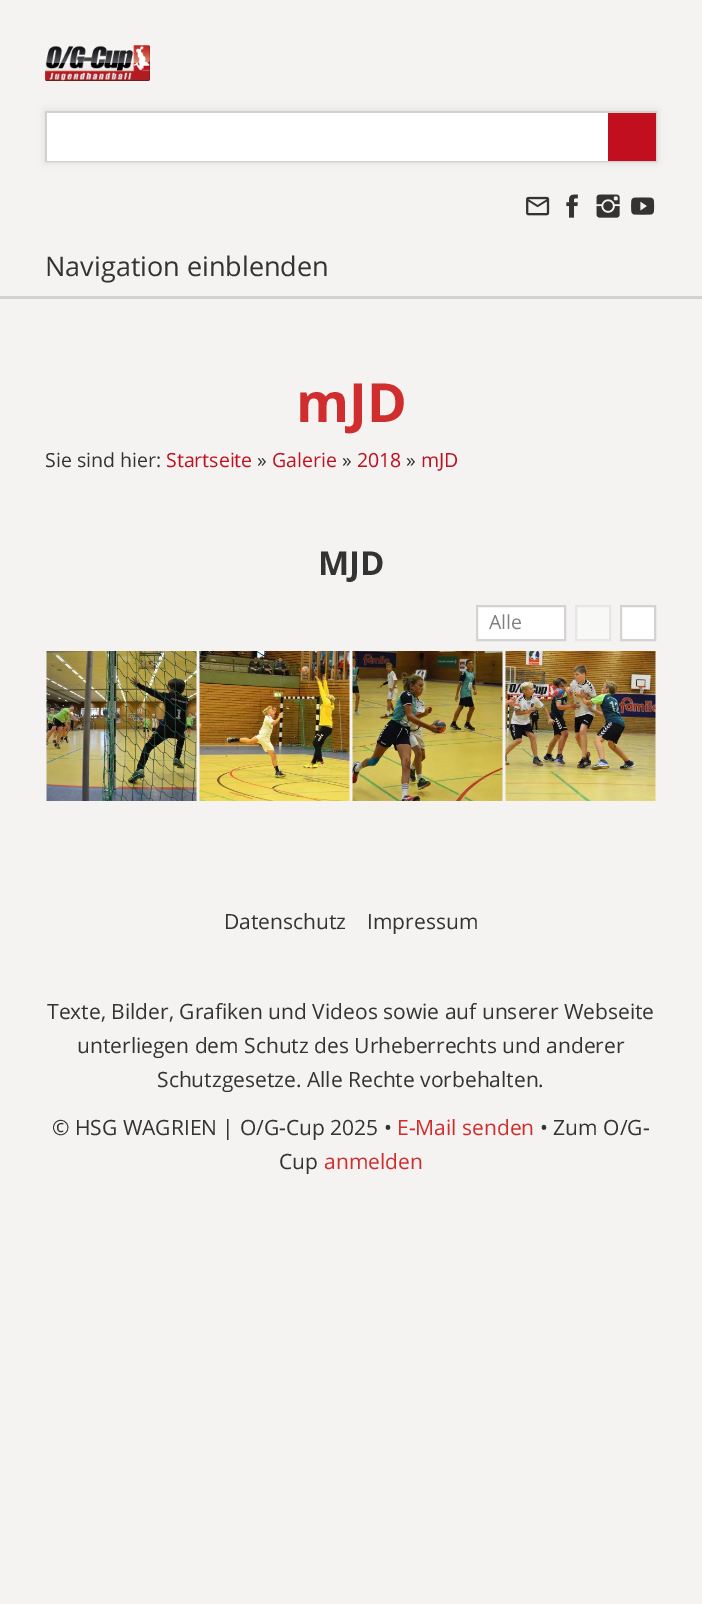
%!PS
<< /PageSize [702 1604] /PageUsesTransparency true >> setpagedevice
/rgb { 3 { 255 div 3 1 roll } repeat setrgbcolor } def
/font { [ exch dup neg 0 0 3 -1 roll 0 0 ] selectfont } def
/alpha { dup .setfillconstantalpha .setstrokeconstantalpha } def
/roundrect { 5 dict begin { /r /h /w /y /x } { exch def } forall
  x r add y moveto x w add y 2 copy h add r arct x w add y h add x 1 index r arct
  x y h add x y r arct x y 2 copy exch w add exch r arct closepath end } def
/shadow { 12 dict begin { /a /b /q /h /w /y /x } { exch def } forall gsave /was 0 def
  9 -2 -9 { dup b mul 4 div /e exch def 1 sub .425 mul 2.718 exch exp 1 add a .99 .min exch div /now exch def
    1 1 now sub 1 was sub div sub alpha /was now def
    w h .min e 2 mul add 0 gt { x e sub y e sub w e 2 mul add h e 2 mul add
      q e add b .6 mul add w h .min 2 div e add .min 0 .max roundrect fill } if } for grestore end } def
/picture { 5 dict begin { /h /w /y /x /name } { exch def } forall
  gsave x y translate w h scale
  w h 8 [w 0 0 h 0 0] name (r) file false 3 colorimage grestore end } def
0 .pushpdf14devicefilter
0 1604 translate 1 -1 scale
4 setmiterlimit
244 243 242 rgb
0 0 702 1604 rectfill
(img/1.rgb) 45 45 105 36 picture
0 0 0 rgb
45 111 612 51 0 4 0.1 shadow
211 209 207 rgb
2 setlinewidth
46 112 610 49 rectstroke
255 255 255 rgb
47 113 561 48 rectfill
193 15 32 rgb
608 113 48 48 rectfill
(img/2.rgb) 526 196 24 20 picture
(img/3.rgb) 566 194 12 24 picture
(img/4.rgb) 596 194 24 24 picture
(img/5.rgb) 631 197 24 18 picture
211 209 207 rgb
0 296 702 3 rectfill
255 255 255 rgb
477 606 moveto 565 606 lineto 565 640 lineto 477 640 lineto closepath gsave fill grestore
211 211 211 rgb
stroke
248 248 247 rgb
576 606 moveto 610 606 lineto 610 640 lineto 576 640 lineto closepath gsave fill grestore
231 230 230 rgb
stroke
255 255 255 rgb
621 606 moveto 655 606 lineto 655 640 lineto 621 640 lineto closepath gsave fill grestore
211 211 211 rgb
stroke
(img/6.rgb) 46 651 151 150 picture
(img/7.rgb) 199 651 151 150 picture
(img/8.rgb) 352 651 151 150 picture
(img/9.rgb) 505 651 151 150 picture
/OpenSans-Regular 27 font
51 51 51 rgb
45 276 moveto (Navigation einblenden) show
/OpenSans-Bold 54 font
208 46 46 rgb
296 422 moveto (mJD) show
/OpenSans-Regular 19.5 font
51 51 51 rgb
45 467 moveto (Sie sind hier:) show
193 15 32 rgb
166 467 moveto (Startseite) show
51 51 51 rgb
257 467 moveto (») show
193 15 32 rgb
272 467 moveto (Galerie) show
51 51 51 rgb
342 467 moveto (») show
193 15 32 rgb
357 467 moveto (2018) show
51 51 51 rgb
406 467 moveto (») show
193 15 32 rgb
421 467 moveto (mJD) show
/OpenSans-Bold 33 font
51 51 51 rgb
318 575 moveto (MJD) show
/OpenSans-Regular 19.5 font
128 128 128 rgb
489 629 moveto (Alle) show
/OpenSans-Regular 21 font
51 51 51 rgb
[
  [(Datenschutz) 224 929]
  [(Impressum) 367 929]
  [(Texte, Bilder, Grafiken und Videos sowie auf unserer Webseite) 47 1019]
  [(unterliegen dem Schutz des Urheberrechts und anderer) 77 1053]
  [(Schutzgesetze. Alle Rechte vorbehalten.) 157 1087]
  [(© HSG WAGRIEN | O/G-Cup 2025 •) 52 1135]
] { aload pop moveto show } forall
208 46 46 rgb
397 1135 moveto (E-Mail senden) show
51 51 51 rgb
540 1135 moveto (• Zum O/G-) show
279 1169 moveto (Cup) show
208 46 46 rgb
324 1169 moveto (anmelden) show
.poppdf14devicefilter showpage
